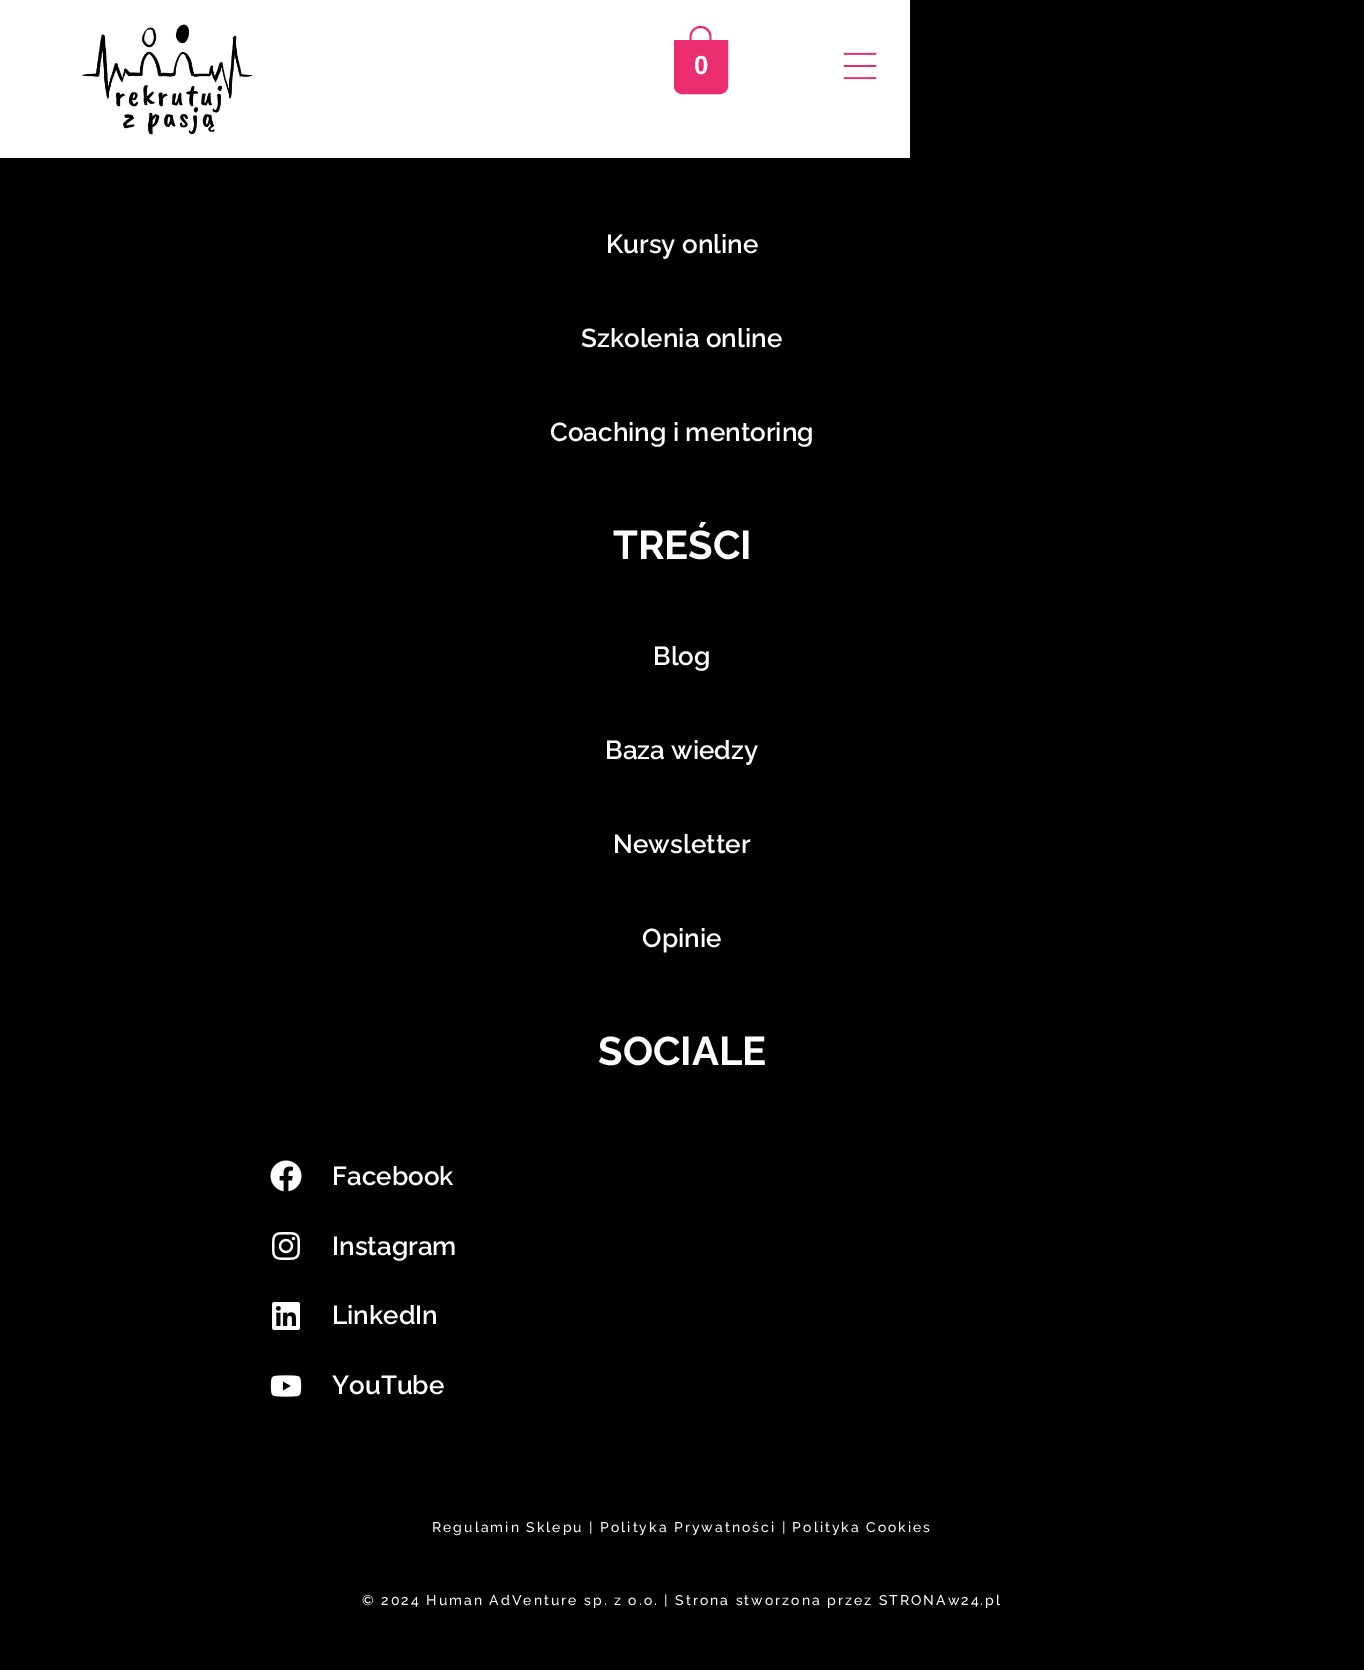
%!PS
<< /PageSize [1364 1670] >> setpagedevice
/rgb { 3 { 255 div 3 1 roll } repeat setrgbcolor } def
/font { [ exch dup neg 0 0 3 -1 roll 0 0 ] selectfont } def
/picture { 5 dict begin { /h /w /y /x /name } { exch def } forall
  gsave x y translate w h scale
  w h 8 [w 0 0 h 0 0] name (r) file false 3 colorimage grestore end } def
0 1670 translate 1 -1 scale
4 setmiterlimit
0 0 0 rgb
0 0 1364 1670 rectfill
255 255 255 rgb
0 0 910 158 rectfill
(img/1.rgb) 81 24 172 111 picture
234 45 111 rgb
675 41 moveto 727 41 lineto 727 86 lineto 727 90 724 93 720 93 curveto 682 93 lineto 678 93 675 90 675 86 curveto closepath gsave fill grestore
2 setlinewidth
stroke
700.5 26 moveto 707 26 711.5 31 711.5 37 curveto 711.5 48 lineto 689.5 48 lineto 689.5 37 lineto 689.5 31 694.5 26 700.5 26 curveto closepath 700.5 28 moveto 705.5 28 709.5 32 709.5 37 curveto 709.5 48 lineto 691.5 48 lineto 691.5 37 lineto 691.5 32 695.5 28 700.5 28 curveto closepath eofill
(img/2.rgb) 843 52 34 28 picture
(img/3.rgb) 270 1160 32 32 picture
(img/4.rgb) 272 1232 28 28 picture
(img/5.rgb) 272 1302 28 28 picture
(img/6.rgb) 270 1375 32 22 picture
/LiberationSans-Bold 26 font
255 255 255 rgb
694 74 moveto (0) show
/Raleway-SemiBold 26 font
[
  [(Kursy online) 606 253]
  [(Szkolenia online) 581 347]
  [(Coaching i mentoring) 550 441]
] { aload pop moveto show } forall
/Raleway-Bold 40 font
613 559 moveto (TREŚCI) show
/Raleway-SemiBold 26 font
[
  [(Blog) 653 665]
  [(Baza wiedzy) 605 759]
  [(Newsletter) 613 853]
  [(Opinie) 642 947]
] { aload pop moveto show } forall
/Raleway-Bold 40 font
598 1065 moveto (SOCIALE) show
/Raleway-SemiBold 26 font
[
  [(Facebook) 332 1185]
  [(Instagram) 332 1255]
  [(LinkedIn) 332 1324]
  [(YouTube) 332 1394]
] { aload pop moveto show } forall
/Raleway-Medium 14 font
432 1532 moveto 2 0 (Regulamin Sklepu | Polityka Prywatności | Polityka Cookies) ashow
362 1605 moveto 2 0 (© 2024 Human AdVenture sp. z o.o. | Strona stworzona przez STRONAw24.pl) ashow
showpage
